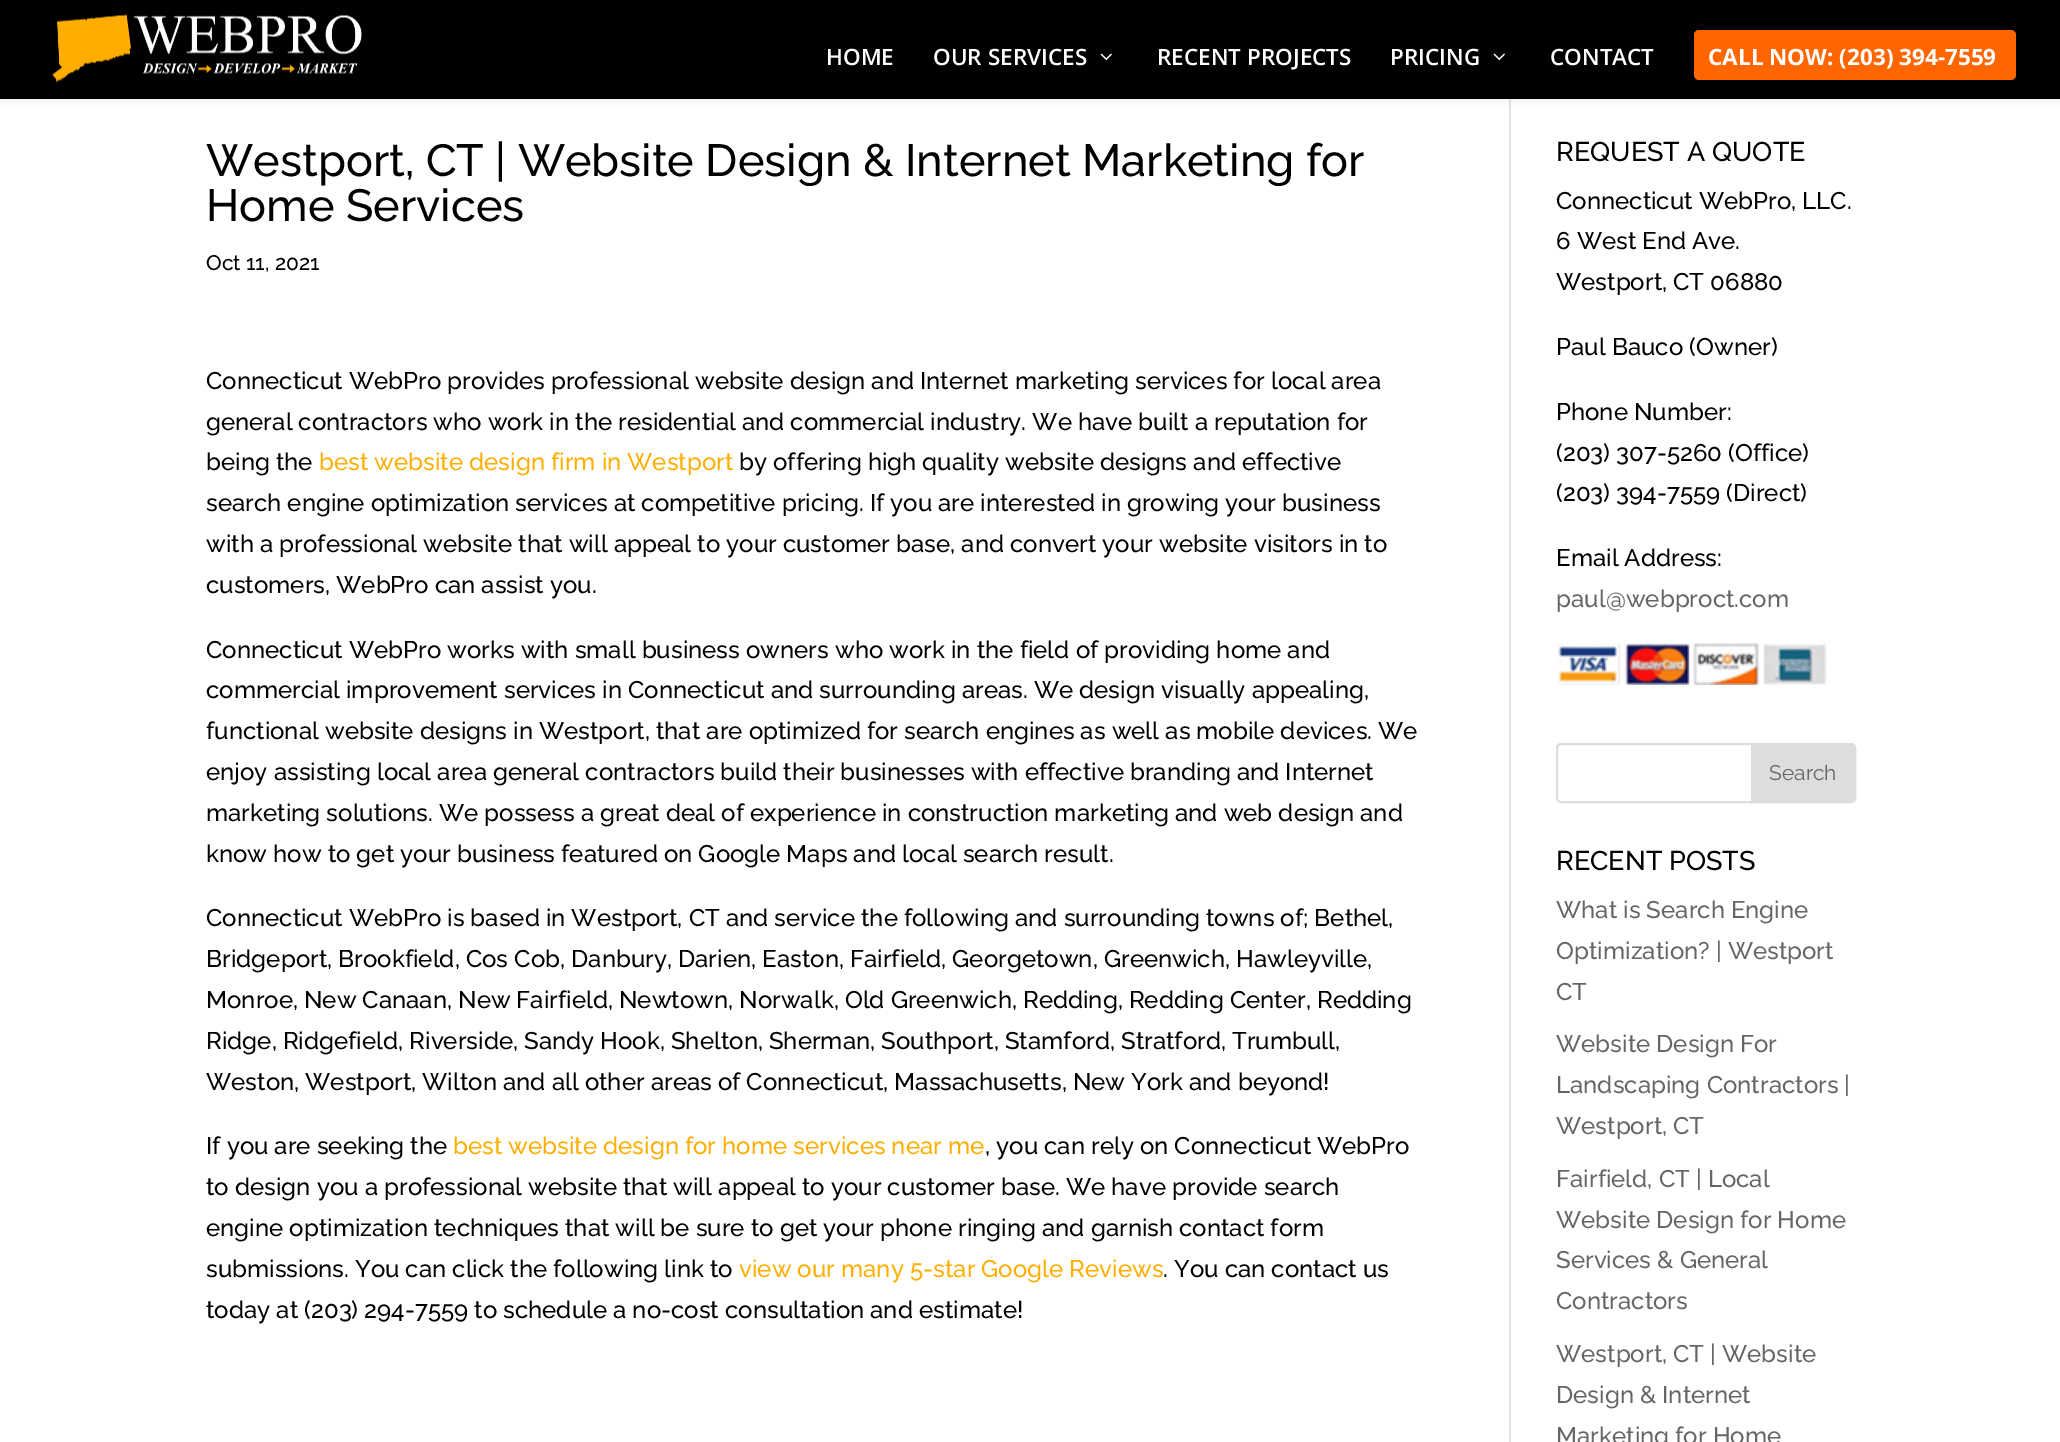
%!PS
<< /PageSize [2060 1442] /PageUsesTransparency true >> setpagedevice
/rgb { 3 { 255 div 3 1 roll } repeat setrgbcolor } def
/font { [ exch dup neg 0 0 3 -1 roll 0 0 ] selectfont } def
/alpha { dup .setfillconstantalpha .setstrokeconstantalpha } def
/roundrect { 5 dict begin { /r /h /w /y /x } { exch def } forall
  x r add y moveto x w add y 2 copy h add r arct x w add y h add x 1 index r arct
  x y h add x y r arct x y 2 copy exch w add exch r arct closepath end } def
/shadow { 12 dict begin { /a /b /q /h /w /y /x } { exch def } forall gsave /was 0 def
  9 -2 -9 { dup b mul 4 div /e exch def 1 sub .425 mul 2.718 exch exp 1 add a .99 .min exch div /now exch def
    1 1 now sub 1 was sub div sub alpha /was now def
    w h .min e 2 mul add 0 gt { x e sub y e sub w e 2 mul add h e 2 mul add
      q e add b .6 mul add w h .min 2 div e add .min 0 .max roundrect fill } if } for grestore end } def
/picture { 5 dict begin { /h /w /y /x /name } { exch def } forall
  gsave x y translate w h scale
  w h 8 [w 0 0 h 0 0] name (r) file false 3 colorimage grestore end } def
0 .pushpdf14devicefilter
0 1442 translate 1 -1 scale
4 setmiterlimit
255 255 255 rgb
0 0 2060 1442 rectfill
226 226 226 rgb
1509 99 2 1343 rectfill
0 0 0 rgb
0 0 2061 99 0 5 0.1 shadow
0 0 2060 99 rectfill
(img/1.rgb) 52 14 310 69 picture
(img/2.rgb) 1100 53 12 7 picture
(img/2.rgb) 1493 53 12 7 picture
255 102 0 rgb
1694 30 322 50 5 roundrect fill
(img/3.rgb) 1557 643 270 42 picture
221 221 221 rgb
2 setlinewidth
1557 744 298 58 4 roundrect stroke
1752 744 moveto 1851 744 lineto 1853 744 1855 746 1855 748 curveto 1855 798 lineto 1855 800 1853 802 1851 802 curveto 1752 802 lineto closepath gsave fill grestore
stroke
/OpenSans-SemiBold 22.5 font
255 255 255 rgb
[
  [(HOME) 826 65]
  [(OUR SERVICES) 933 65]
  [(RECENT PROJECTS) 1157 65]
  [(PRICING) 1390 65]
  [(CONTACT) 1550 65]
] { aload pop moveto show } forall
/OpenSans-Bold 22.5 font
1708 65 moveto (CALL NOW: \(203\) 394-7559) show
/Raleway-Medium 45 font
0 0 0 rgb
206 176 moveto (Westport, CT | Website Design & Internet Marketing for) show
206 221 moveto (Home Services) show
/Raleway-Medium 21 font
206 270 moveto (Oct 11, 2021) show
/Raleway-Medium 24 font
[
  [(Connecticut WebPro provides professional website design and Internet marketing services for local area) 206 389]
  [(general contractors who work in the residential and commercial industry. We have built a reputation for) 206 430]
  [(being the) 206 470]
] { aload pop moveto show } forall
255 174 0 rgb
319 470 moveto (best website design firm in Westport) show
0 0 0 rgb
[
  [(by offering high quality website designs and effective) 739 470]
  [(search engine optimization services at competitive pricing. If you are interested in growing your business) 206 511]
  [(with a professional website that will appeal to your customer base, and convert your website visitors in to) 206 552]
  [(customers, WebPro can assist you.) 206 593]
  [(Connecticut WebPro works with small business owners who work in the field of providing home and) 206 658]
  [(commercial improvement services in Connecticut and surrounding areas. We design visually appealing,) 206 698]
  [(functional website designs in Westport, that are optimized for search engines as well as mobile devices. We) 206 739]
  [(enjoy assisting local area general contractors build their businesses with effective branding and Internet) 206 780]
  [(marketing solutions. We possess a great deal of experience in construction marketing and web design and) 206 821]
  [(know how to get your business featured on Google Maps and local search result.) 206 862]
  [(Connecticut WebPro is based in Westport, CT and service the following and surrounding towns of; Bethel,) 206 926]
  [(Bridgeport, Brookfield, Cos Cob, Danbury, Darien, Easton, Fairfield, Georgetown, Greenwich, Hawleyville,) 206 967]
  [(Monroe, New Canaan, New Fairfield, Newtown, Norwalk, Old Greenwich, Redding, Redding Center, Redding) 206 1008]
  [(Ridge, Ridgefield, Riverside, Sandy Hook, Shelton, Sherman, Southport, Stamford, Stratford, Trumbull,) 206 1049]
  [(Weston, Westport, Wilton and all other areas of Connecticut, Massachusetts, New York and beyond!) 206 1090]
  [(If you are seeking the) 206 1154]
] { aload pop moveto show } forall
255 174 0 rgb
453 1154 moveto (best website design for home services near me) show
0 0 0 rgb
[
  [(, you can rely on Connecticut WebPro) 985 1154]
  [(to design you a professional website that will appeal to your customer base. We have provide search) 206 1195]
  [(engine optimization techniques that will be sure to get your phone ringing and garnish contact form) 206 1236]
  [(submissions. You can click the following link to) 206 1277]
] { aload pop moveto show } forall
255 174 0 rgb
739 1277 moveto (view our many 5-star Google Reviews) show
0 0 0 rgb
1163 1277 moveto (. You can contact us) show
206 1318 moveto (today at \(203\) 294-7559 to schedule a no-cost consultation and estimate!) show
/Raleway-Medium 27 font
1556 161 moveto (REQUEST A QUOTE) show
/Raleway-Medium 24 font
[
  [(Connecticut WebPro, LLC.) 1556 209]
  [(6 West End Ave.) 1556 249]
  [(Westport, CT 06880) 1556 290]
  [(Paul Bauco \(Owner\)) 1556 355]
  [(Phone Number:) 1556 420]
  [(\(203\) 307-5260 \(Office\)) 1556 461]
  [(\(203\) 394-7559 \(Direct\)) 1556 501]
  [(Email Address:) 1556 566]
] { aload pop moveto show } forall
102 102 102 rgb
1556 607 moveto (paul@webproct.com) show
/Raleway-Regular 21 font
1769 780 moveto (Search) show
/Raleway-Medium 27 font
0 0 0 rgb
1556 870 moveto (RECENT POSTS) show
/Raleway-Medium 24 font
102 102 102 rgb
[
  [(What is Search Engine) 1556 918]
  [(Optimization? | Westport) 1556 959]
  [(CT) 1556 1000]
  [(Website Design For) 1556 1052]
  [(Landscaping Contractors |) 1556 1093]
  [(Westport, CT) 1556 1134]
  [(Fairfield, CT | Local) 1556 1187]
  [(Website Design for Home) 1556 1228]
  [(Services & General) 1556 1268]
  [(Contractors) 1556 1309]
  [(Westport, CT | Website) 1556 1362]
  [(Design & Internet) 1556 1403]
  [(Marketing for Home) 1556 1444]
] { aload pop moveto show } forall
.poppdf14devicefilter showpage
